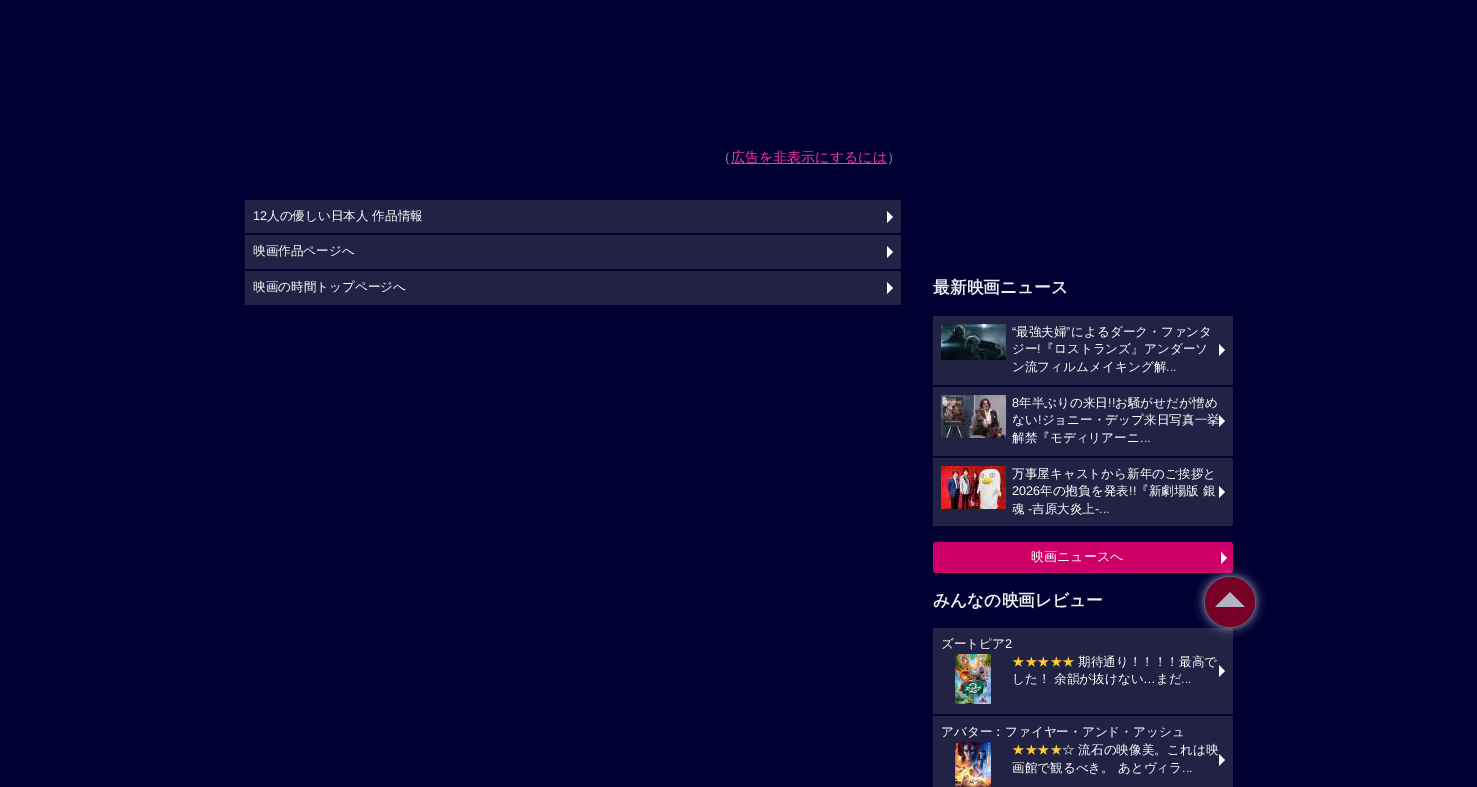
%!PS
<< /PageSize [1477 787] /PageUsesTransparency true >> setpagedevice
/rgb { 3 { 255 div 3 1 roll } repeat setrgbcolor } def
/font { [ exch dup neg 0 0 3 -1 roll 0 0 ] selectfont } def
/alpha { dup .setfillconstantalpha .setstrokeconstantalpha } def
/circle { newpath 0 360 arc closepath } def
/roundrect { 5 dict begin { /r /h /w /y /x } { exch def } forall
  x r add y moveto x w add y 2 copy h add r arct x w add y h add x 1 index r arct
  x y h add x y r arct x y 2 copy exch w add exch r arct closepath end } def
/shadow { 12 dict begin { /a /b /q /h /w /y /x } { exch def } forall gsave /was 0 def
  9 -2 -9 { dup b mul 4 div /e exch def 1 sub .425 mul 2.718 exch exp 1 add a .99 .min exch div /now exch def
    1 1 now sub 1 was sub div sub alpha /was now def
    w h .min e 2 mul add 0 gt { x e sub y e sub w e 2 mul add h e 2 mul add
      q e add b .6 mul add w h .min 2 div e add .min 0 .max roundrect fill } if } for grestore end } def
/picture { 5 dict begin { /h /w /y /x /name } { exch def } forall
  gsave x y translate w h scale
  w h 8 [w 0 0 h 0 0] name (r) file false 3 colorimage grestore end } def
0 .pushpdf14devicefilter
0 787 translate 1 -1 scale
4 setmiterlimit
0 0 51 rgb
0 0 1477 787 rectfill
255 51 153 rgb
731 163 156 1 rectfill
34 34 68 rgb
245 200 656 33 rectfill
255 255 255 rgb
887 223 moveto 887 211 lineto 893 217 lineto closepath fill
34 34 68 rgb
245 235 656 34 rectfill
255 255 255 rgb
887 258 moveto 887 246 lineto 893 252 lineto closepath fill
34 34 68 rgb
245 271 656 34 rectfill
255 255 255 rgb
887 294 moveto 887 282 lineto 893 288 lineto closepath fill
34 34 68 rgb
933 316 300 69 rectfill
(img/1.rgb) 941 324 65 36 picture
255 255 255 rgb
1219 356 moveto 1219 344 lineto 1225 350 lineto closepath fill
34 34 68 rgb
933 387 300 69 rectfill
(img/2.rgb) 941 395 65 43 picture
255 255 255 rgb
1219 427 moveto 1219 415 lineto 1225 421 lineto closepath fill
34 34 68 rgb
933 458 300 68 rectfill
(img/3.rgb) 941 466 65 43 picture
255 255 255 rgb
1219 498 moveto 1219 486 lineto 1225 492 lineto closepath fill
204 0 102 rgb
933 542 300 31 3 roundrect fill
255 255 255 rgb
1221 564 moveto 1221 552 lineto 1227 558 lineto closepath fill
34 34 68 rgb
933 628 300 86 rectfill
(img/4.rgb) 955 654 36 50 picture
255 255 255 rgb
1219 677 moveto 1219 665 lineto 1225 671 lineto closepath fill
34 34 68 rgb
933 716 300 71 rectfill
(img/5.rgb) 955 742 36 45 picture
255 255 255 rgb
1219 766 moveto 1219 754 lineto 1225 760 lineto closepath fill
1205 577 50 50 25 5 0.7 shadow
119 0 39 rgb
1230 602 25 circle fill
179 179 194 rgb
1245 607 moveto 1215 607 lineto 1230 592 lineto closepath fill
/WenQuanYiZenHei-Medium 14 font
153 153 153 rgb
717 162 moveto (（) show
255 51 153 rgb
731 162 moveto (広告を非表示にするには) show
153 153 153 rgb
887 162 moveto (）) show
/LiberationSans-Regular 12.6 font
255 255 255 rgb
253 220 moveto (12) show
/WenQuanYiZenHei-Medium 12.6 font
[
  [(人の優しい日本人 作品情報) 267 220]
  [(映画作品ページへ) 253 255]
  [(映画の時間トップページへ) 253 291]
] { aload pop moveto show } forall
/WenQuanYiZenHei-Bold 16.75 font
238 238 238 rgb
933 293 moveto (最新映画ニュース) show
/LiberationSans-Regular 12.6 font
255 255 255 rgb
1012 336 moveto (“) show
/WenQuanYiZenHei-Medium 12.6 font
1016 336 moveto (最強夫婦) show
/LiberationSans-Regular 12.6 font
1066 336 moveto (”) show
/WenQuanYiZenHei-Medium 12.6 font
1071 336 moveto (によるダーク・ファンタ) show
1012 353 moveto (ジー 『ロストランズ』アンダーソ) show
/LiberationSans-Regular 12.6 font
1037 353 moveto (!) show
/WenQuanYiZenHei-Medium 12.6 font
1012 371 moveto (ン流フィルムメイキング解) show
/LiberationSans-Regular 12.6 font
1166 371 moveto (...) show
1012 407 moveto (8) show
/WenQuanYiZenHei-Medium 12.6 font
1019 407 moveto (年半ぶりの来日) show
/LiberationSans-Regular 12.6 font
1108 407 moveto (!!) show
/WenQuanYiZenHei-Medium 12.6 font
1115 407 moveto (お騒がせだが憎め) show
1012 424 moveto (ない ジョニー・デップ来日写真一挙) show
/LiberationSans-Regular 12.6 font
1038 424 moveto (!) show
/WenQuanYiZenHei-Medium 12.6 font
1012 442 moveto (解禁『モディリアーニ) show
/LiberationSans-Regular 12.6 font
1140 442 moveto (...) show
/WenQuanYiZenHei-Medium 12.6 font
1012 478 moveto (万事屋キャストから新年のご挨拶と) show
/LiberationSans-Regular 12.6 font
1012 495 moveto (2026) show
/WenQuanYiZenHei-Medium 12.6 font
1040 495 moveto (年の抱負を発表) show
/LiberationSans-Regular 12.6 font
1129 495 moveto (!!) show
/WenQuanYiZenHei-Medium 12.6 font
1136 495 moveto (『新劇場版 銀) show
1012 513 moveto (魂) show
/LiberationSans-Regular 12.6 font
1028 513 moveto (-) show
/WenQuanYiZenHei-Medium 12.6 font
1032 513 moveto (吉原大炎上) show
/LiberationSans-Regular 12.6 font
1095 513 moveto (-...) show
/WenQuanYiZenHei-Medium 13 font
1031 561 moveto (映画ニュースへ) show
/WenQuanYiZenHei-Bold 16.75 font
238 238 238 rgb
933 606 moveto (みんなの映画レビュー) show
/WenQuanYiZenHei-Medium 12.6 font
255 255 255 rgb
941 648 moveto (ズートピア) show
/LiberationSans-Regular 12.6 font
1005 648 moveto (2) show
/WenQuanYiZenHei-Medium 12.6 font
255 204 51 rgb
1012 666 moveto (★★★★★) show
255 255 255 rgb
1078 666 moveto (期待通り！！！！最高で) show
1012 683 moveto (した！ 余韻が抜けない) show
/LiberationSans-Regular 12.6 font
1143 683 moveto (…) show
/WenQuanYiZenHei-Medium 12.6 font
1156 683 moveto (まだ) show
/LiberationSans-Regular 12.6 font
1181 683 moveto (...) show
/WenQuanYiZenHei-Medium 12.6 font
941 736 moveto (アバター：ファイヤー・アンド・アッシュ) show
255 204 51 rgb
1012 754 moveto (★★★★) show
255 255 255 rgb
1062 754 moveto (☆ 流石の映像美。これは映) show
1012 772 moveto (画館で観るべき。 あとヴィラ) show
/LiberationSans-Regular 12.6 font
1182 772 moveto (...) show
.poppdf14devicefilter showpage
